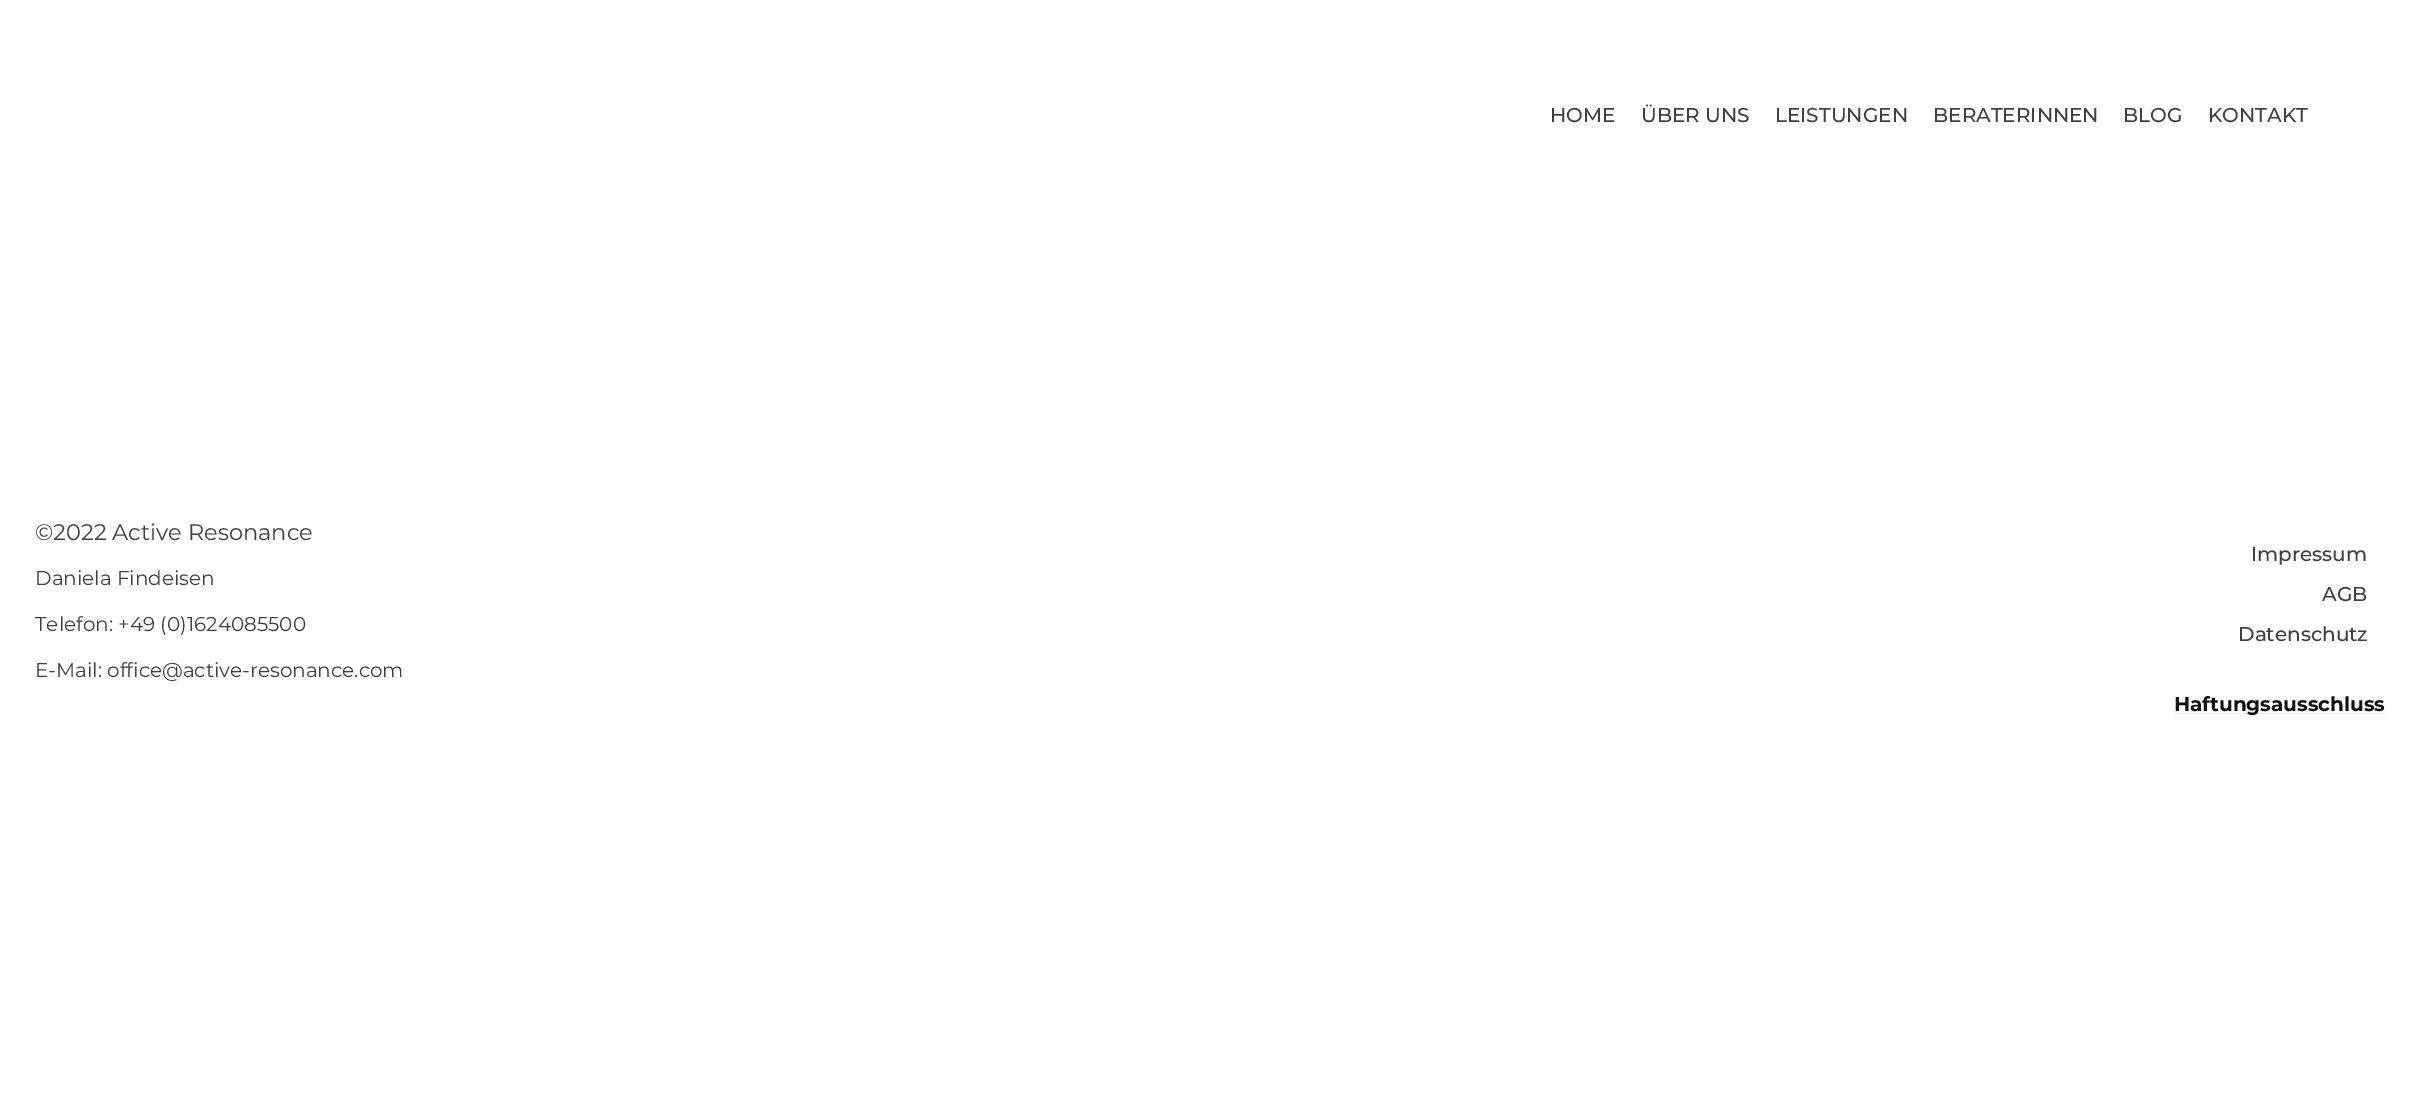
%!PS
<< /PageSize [2420 1108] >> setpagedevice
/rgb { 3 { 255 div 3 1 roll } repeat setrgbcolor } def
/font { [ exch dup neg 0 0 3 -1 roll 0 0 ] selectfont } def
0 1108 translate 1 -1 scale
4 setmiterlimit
255 255 255 rgb
0 0 2420 1108 rectfill
235 235 235 rgb
2174 713 211 1 rectfill
/Montserrat-Medium 20 font
64 64 64 rgb
[
  [(HOME) 1550 122]
  [(ÜBER UNS) 1641 122]
  [(LEISTUNGEN) 1775 122]
  [(BERATERINNEN) 1933 122]
  [(BLOG) 2123 122]
  [(KONTAKT) 2208 122]
] { aload pop moveto show } forall
/Montserrat-Regular 22.5 font
35 540 moveto (©2022 Active Resonance) show
/Montserrat-Regular 20 font
[
  [(Daniela Findeisen) 35 585]
  [(Telefon: +49 \(0\)1624085500) 35 631]
  [(E-Mail: office@active-resonance.com) 35 677]
] { aload pop moveto show } forall
/Montserrat-Medium 20 font
[
  [(Impressum) 2251 561]
  [(AGB) 2322 601]
  [(Datenschutz) 2238 641]
] { aload pop moveto show } forall
/Montserrat-Bold 20 font
12 17 21 rgb
2174 711 moveto (Haftungsausschluss) show
showpage
